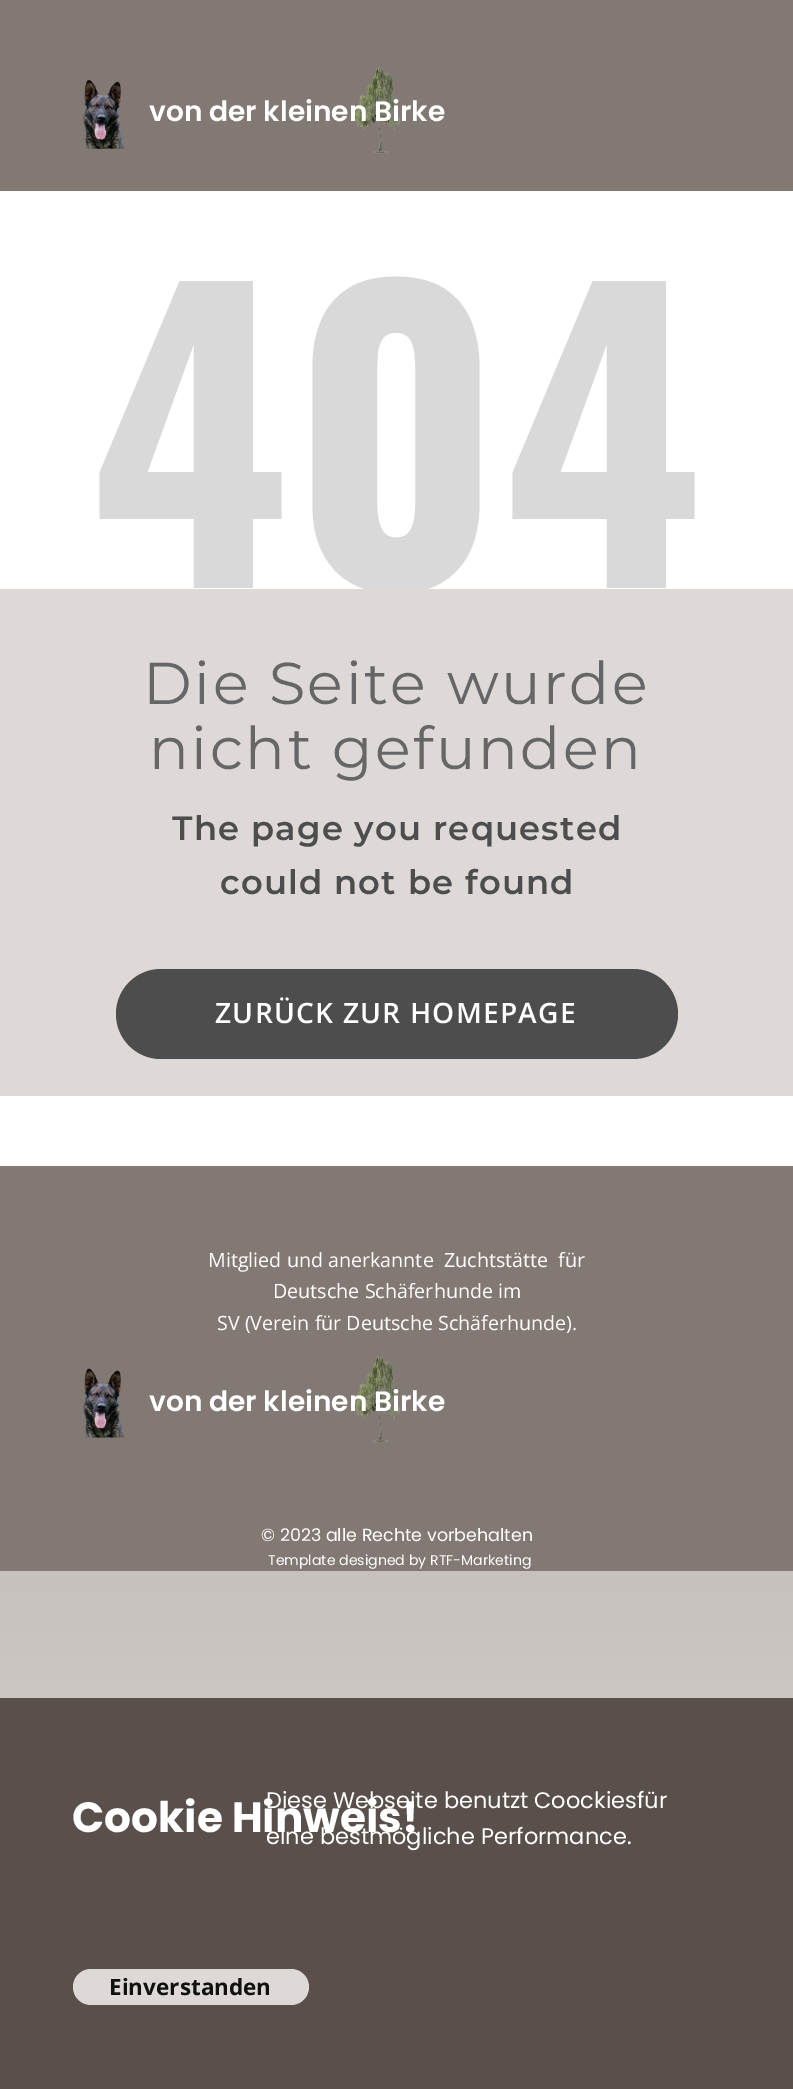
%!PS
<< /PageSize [793 2089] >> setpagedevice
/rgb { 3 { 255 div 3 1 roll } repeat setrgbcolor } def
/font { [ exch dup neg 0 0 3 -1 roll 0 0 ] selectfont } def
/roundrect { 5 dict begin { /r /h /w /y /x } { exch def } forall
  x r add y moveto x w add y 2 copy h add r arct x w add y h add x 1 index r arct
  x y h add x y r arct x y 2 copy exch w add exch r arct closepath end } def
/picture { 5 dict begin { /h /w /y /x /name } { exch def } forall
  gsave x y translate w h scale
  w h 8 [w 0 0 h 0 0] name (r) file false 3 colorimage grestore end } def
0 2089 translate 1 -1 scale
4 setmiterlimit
255 255 255 rgb
0 0 793 2089 rectfill
gsave 0 1571 moveto 793 1571 lineto 793 1698 lineto 0 1698 lineto closepath clip newpath
<< /ShadingType 2 /ColorSpace /DeviceRGB /Coords [397 0 397 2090] /Extend [true true] /Function << /FunctionType 2 /Domain [0 1] /C0 [0.514 0.475 0.455] /C1 [0.871 0.851 0.843] /N 1 >> >> shfill grestore
131 121 116 rgb
0 0 793 191 rectfill
(img/1.rgb) 83 80 42 69 picture
(img/2.rgb) 352 67 48 87 picture
0 1166 793 405 rectfill
(img/3.rgb) 83 1368 42 70 picture
(img/4.rgb) 352 1356 48 87 picture
89 80 76 rgb
0 1698 793 391 rectfill
222 217 215 rgb
73 1969 236 36 18 roundrect fill
/Poppins-SemiBold 28.1 font
255 255 255 rgb
149 121 moveto (von der kleinen Birke) show
/Oswald-Bold 380 font
217 217 217 rgb
90 588 moveto 2.5 0 (404) ashow
222 217 215 rgb
0 589 793 507 rectfill
/Montserrat-Regular 59 font
102 102 102 rgb
143 704 moveto 2.5 0 (Die Seite wurde) ashow
149 769 moveto 2.5 0 (nicht gefunden) ashow
/Montserrat-SemiBold 33.75 font
77 77 77 rgb
172 840 moveto 1.25 0 (The page you requested) ashow
220 894 moveto 1.25 0 (could not be found) ashow
116 969 562 90 45 roundrect fill
/OpenSans-SemiBold 28.1 font
255 255 255 rgb
215 1023 moveto 1.25 0 (ZURÜCK ZUR HOMEPAGE) ashow
/OpenSans-Regular 19.7 font
[
  [(Mitglied und anerkannte  Zuchtstätte  für) 208 1267]
  [(Deutsche Schäferhunde im) 273 1298]
  [(SV \(Verein für Deutsche Schäferhunde\).) 217 1330]
] { aload pop moveto show } forall
/Poppins-SemiBold 28.1 font
149 1411 moveto (von der kleinen Birke) show
/Poppins-Regular 17.5 font
261 1541 moveto (© 2023 alle Rechte vorbehalten) show
/Poppins-Regular 14.1 font
268 1565 moveto (Template designed by RTF-Marketing) show
/Poppins-Regular 22.5 font
266 1808 moveto (Diese Webseite benutzt Coockiesfür) show
/Poppins-Bold 42.25 font
72 1832 moveto (Cookie Hinweis!) show
/Poppins-Regular 22.5 font
266 1844 moveto (eine bestmögliche Performance.) show
/OpenSans-Bold 22.5 font
17 17 17 rgb
109 1995 moveto (Einverstanden) show
showpage
